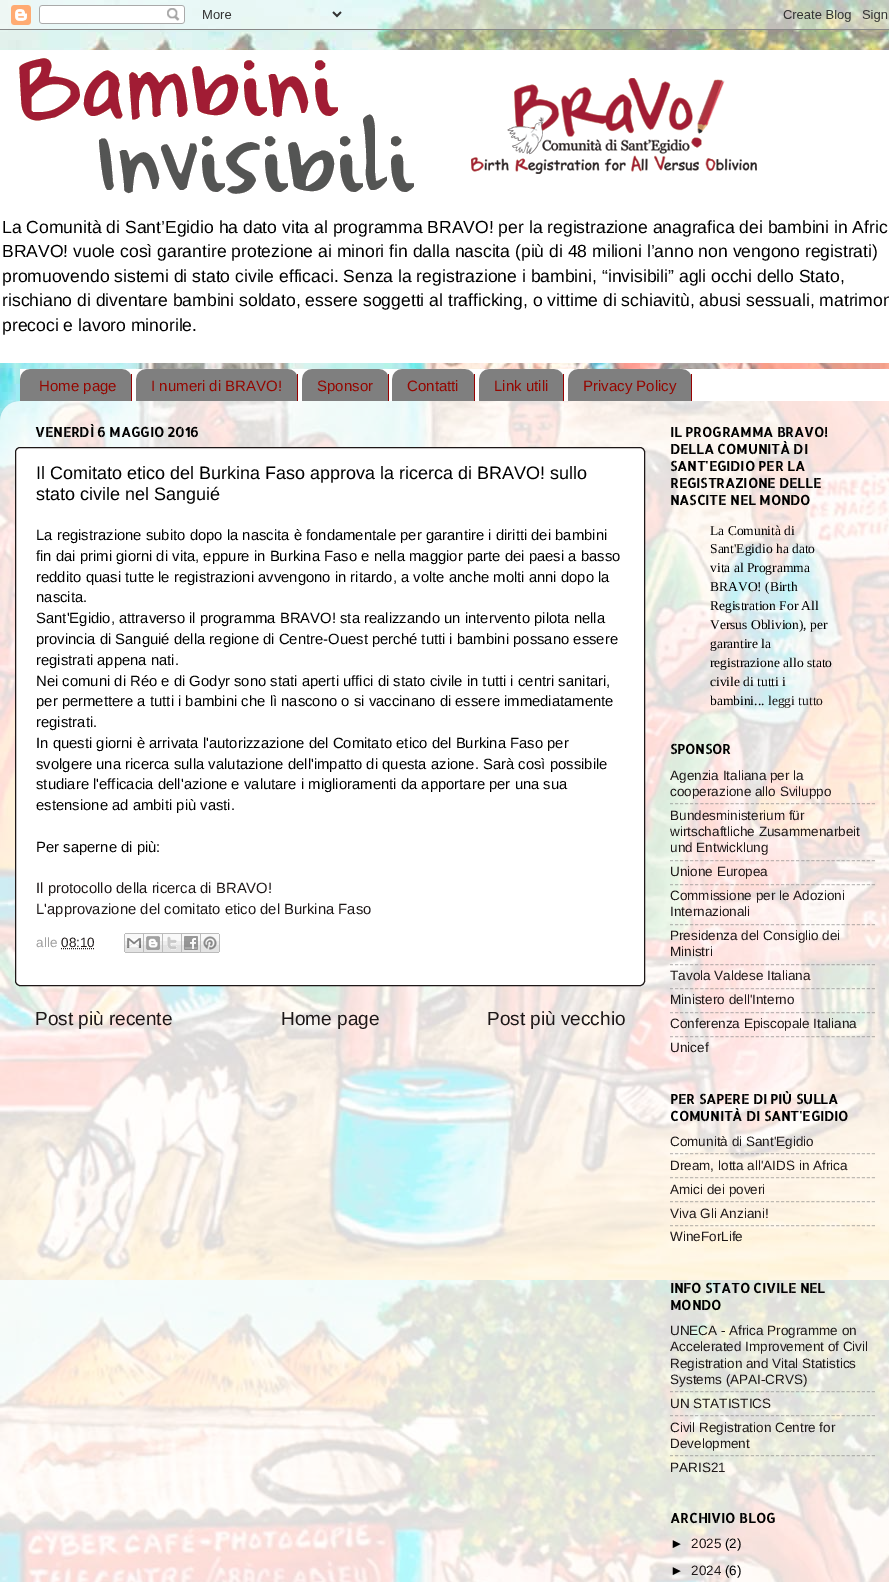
%!PS
<< /PageSize [889 1582] /PageUsesTransparency true >> setpagedevice
/rgb { 3 { 255 div 3 1 roll } repeat setrgbcolor } def
/font { [ exch dup neg 0 0 3 -1 roll 0 0 ] selectfont } def
/alpha { dup .setfillconstantalpha .setstrokeconstantalpha } def
/roundrect { 5 dict begin { /r /h /w /y /x } { exch def } forall
  x r add y moveto x w add y 2 copy h add r arct x w add y h add x 1 index r arct
  x y h add x y r arct x y 2 copy exch w add exch r arct closepath end } def
/picture { 5 dict begin { /h /w /y /x /name } { exch def } forall
  gsave x y translate w h scale
  w h 8 [w 0 0 h 0 0] name (r) file false 3 colorimage grestore end } def
0 .pushpdf14devicefilter
0 1582 translate 1 -1 scale
4 setmiterlimit
255 255 255 rgb
0 0 889 1582 rectfill
(img/1.rgb) 0 0 889 1582 picture
(img/2.rgb) 0 0 889 30 picture
0 50 889 313 rectfill
(img/3.rgb) 19 58 738 136 picture
20 369 869 32 rectfill
(img/4.rgb) 20 369 111 32 picture
153 0 0 rgb
131 374 1 27 rectfill
(img/5.rgb) 136 369 161 32 picture
297 374 1 27 rectfill
(img/6.rgb) 302 369 86 32 picture
388 374 1 27 rectfill
(img/7.rgb) 392 369 82 32 picture
474 374 1 27 rectfill
(img/8.rgb) 479 369 84 32 picture
563 374 1 27 rectfill
(img/9.rgb) 568 369 123 32 picture
691 374 1 27 rectfill
(img/10.rgb) 0 401 889 1181 picture
255 255 255 rgb
15.5 447.5 629 538 4.5 roundrect gsave fill grestore
29 23 23 rgb
stroke
[1 1] 0 setdash
61 948.5 moveto 94.5 948.5 lineto stroke
(img/11.rgb) 124 933 20 20 picture
(img/12.rgb) 144 933 19 20 picture
(img/13.rgb) 163 933 19 20 picture
(img/14.rgb) 182 933 19 20 picture
(img/15.rgb) 201 933 19 20 picture
0.5 alpha
128 128 128 rgb
[3 2.05] 0 setdash
670 803.5 moveto 875 803.5 lineto stroke
670 860.5 moveto 875 860.5 lineto stroke
670 884.5 moveto 875 884.5 lineto stroke
670 924.5 moveto 875 924.5 lineto stroke
670 964.5 moveto 875 964.5 lineto stroke
670 988.5 moveto 875 988.5 lineto stroke
670 1012.5 moveto 875 1012.5 lineto stroke
670 1036.5 moveto 875 1036.5 lineto stroke
670 1153.5 moveto 875 1153.5 lineto stroke
670 1177.5 moveto 875 1177.5 lineto stroke
670 1201.5 moveto 875 1201.5 lineto stroke
670 1225.5 moveto 875 1225.5 lineto stroke
670 1391.5 moveto 875 1391.5 lineto stroke
670 1415.5 moveto 875 1415.5 lineto stroke
670 1455.5 moveto 875 1455.5 lineto stroke
/LiberationSans-Regular 17.55 font
1 alpha
0 0 0 rgb
[
  [(La Comunità di Sant’Egidio ha dato vita al programma BRAVO! per la registrazione anagrafica dei bambini in Afric) 2 233]
  [(BRAVO! vuole così garantire protezione ai minori fin dalla nascita \(più di 48 milioni l’anno non vengono registrati\)) 2 257]
  [(promuovendo sistemi di stato civile efficaci. Senza la registrazione i bambini, “invisibili” agli occhi dello Stato,) 2 282]
  [(rischiano di diventare bambini soldato, essere soggetti al trafficking, o vittime di schiavitù, abusi sessuali, matrimon) 2 306]
  [(precoci e lavoro minorile.) 2 331]
] { aload pop moveto show } forall
/LiberationSans-Regular 15 font
148 6 0 rgb
[
  [(Home page) 39 391]
  [(I numeri di BRAVO!) 151 391]
  [(Sponsor) 317 391]
  [(Contatti) 407 391]
  [(Link utili) 494 391]
  [(Privacy Policy) 583 391]
] { aload pop moveto show } forall
/AllertaStencil-Bold 13.5 font
0 0 0 rgb
35 437 moveto (VENERDÌ 6 MAGGIO 2016) show
/LiberationSans-Regular 18 font
36 479 moveto (Il Comitato etico del Burkina Faso approva la ricerca di BRAVO! sullo) show
36 500 moveto (stato civile nel Sanguié) show
/LiberationSans-Regular 14.85 font
[
  [(La registrazione subito dopo la nascita è fondamentale per garantire i diritti dei bambini) 36 540]
  [(fin dai primi giorni di vita, eppure in Burkina Faso e nella maggior parte dei paesi a basso) 36 561]
  [(reddito quasi tutte le registrazioni avvengono in ritardo, a volte anche molti anni dopo la) 36 582]
  [(nascita.) 36 602]
  [(Sant'Egidio, attraverso il programma BRAVO! sta realizzando un intervento pilota nella) 36 623]
  [(provincia di Sanguié della regione di Centre-Ouest perché tutti i bambini possano essere) 36 644]
  [(registrati appena nati.) 36 665]
  [(Nei comuni di Réo e di Godyr sono stati aperti uffici di stato civile in tutti i centri sanitari,) 36 686]
  [(per permettere a tutti i bambini che lì nascono o si vaccinano di essere immediatamente) 36 706]
  [(registrati.) 36 727]
  [(In questi giorni è arrivata l'autorizzazione del Comitato etico del Burkina Faso per) 36 748]
  [(svolgere una ricerca sulla valutazione dell'impatto di questa azione. Sarà così possibile) 36 769]
  [(studiare l'efficacia dell'azione e valutare i miglioramenti da apportare per una sua) 36 789]
  [(estensione ad ambiti più vasti.) 36 810]
  [(Per saperne di più:) 36 852]
] { aload pop moveto show } forall
29 23 23 rgb
36 893 moveto (Il protocollo della ricerca di BRAVO!) show
36 914 moveto (L'approvazione del comitato etico del Burkina Faso) show
/LiberationSans-Regular 13.5 font
159 159 159 rgb
36 947 moveto (alle) show
29 23 23 rgb
61 947 moveto (08:10) show
/LiberationSans-Regular 19 font
[
  [(Post più recente) 35 1025]
  [(Home page) 281 1025]
  [(Post più vecchio) 487 1025]
] { aload pop moveto show } forall
/AllertaStencil-Bold 13.5 font
0 0 0 rgb
[
  [(IL PROGRAMMA BRAVO!) 670 437]
  [(DELLA COMUNITÀ DI) 670 454]
  [(SANT'EGIDIO PER LA) 670 471]
  [(REGISTRAZIONE DELLE) 670 488]
  [(NASCITE NEL MONDO) 670 505]
] { aload pop moveto show } forall
/LiberationSerif-Regular 13.5 font
[
  [(La Comunità di) 710 535]
  [(Sant'Egidio ha dato) 710 553]
  [(vita al Programma) 710 572]
  [(BRAVO! \(Birth) 710 591]
  [(Registration For All) 710 610]
  [(Versus Oblivion\), per) 710 629]
  [(garantire la) 710 648]
  [(registrazione allo stato) 710 667]
  [(civile di tutti i) 710 686]
  [(bambini...) 710 705]
] { aload pop moveto show } forall
29 23 23 rgb
768 705 moveto (leggi tutto) show
/AllertaStencil-Bold 13.5 font
0 0 0 rgb
670 754 moveto (SPONSOR) show
/LiberationSans-Regular 13.5 font
29 23 23 rgb
[
  [(Agenzia Italiana per la) 670 780]
  [(cooperazione allo Sviluppo) 670 796]
  [(Bundesministerium für) 670 820]
  [(wirtschaftliche Zusammenarbeit) 670 836]
  [(und Entwicklung) 670 852]
  [(Unione Europea) 670 876]
  [(Commissione per le Adozioni) 670 900]
  [(Internazionali) 670 916]
  [(Presidenza del Consiglio dei) 670 940]
  [(Ministri) 670 956]
  [(Tavola Valdese Italiana) 670 980]
  [(Ministero dell'Interno) 670 1004]
  [(Conferenza Episcopale Italiana) 670 1028]
  [(Unicef) 670 1052]
] { aload pop moveto show } forall
/AllertaStencil-Bold 13.5 font
0 0 0 rgb
670 1104 moveto (PER SAPERE DI PIÙ SULLA) show
670 1121 moveto (COMUNITÀ DI SANT'EGIDIO) show
/LiberationSans-Regular 13.5 font
29 23 23 rgb
[
  [(Comunità di Sant'Egidio) 670 1146]
  [(Dream, lotta all'AIDS in Africa) 670 1170]
  [(Amici dei poveri) 670 1194]
  [(Viva Gli Anziani!) 670 1218]
  [(WineForLife) 670 1241]
] { aload pop moveto show } forall
/AllertaStencil-Bold 13.5 font
0 0 0 rgb
670 1293 moveto (INFO STATO CIVILE NEL) show
670 1310 moveto (MONDO) show
/LiberationSans-Regular 13.5 font
29 23 23 rgb
[
  [(UNECA - Africa Programme on) 670 1335]
  [(Accelerated Improvement of Civil) 670 1351]
  [(Registration and Vital Statistics) 670 1368]
  [(Systems \(APAI-CRVS\)) 670 1384]
  [(UN STATISTICS) 670 1408]
  [(Civil Registration Centre for) 670 1432]
  [(Development) 670 1448]
  [(PARIS21) 670 1472]
] { aload pop moveto show } forall
/AllertaStencil-Bold 13.5 font
0 0 0 rgb
670 1523 moveto (ARCHIVIO BLOG) show
/LiberationSans-Regular 13.5 font
670 1548 moveto (►) show
29 23 23 rgb
691 1548 moveto (2025) show
0 0 0 rgb
725 1548 moveto (\(2\)) show
670 1575 moveto (►) show
29 23 23 rgb
691 1575 moveto (2024) show
0 0 0 rgb
725 1575 moveto (\(6\)) show
.poppdf14devicefilter showpage
